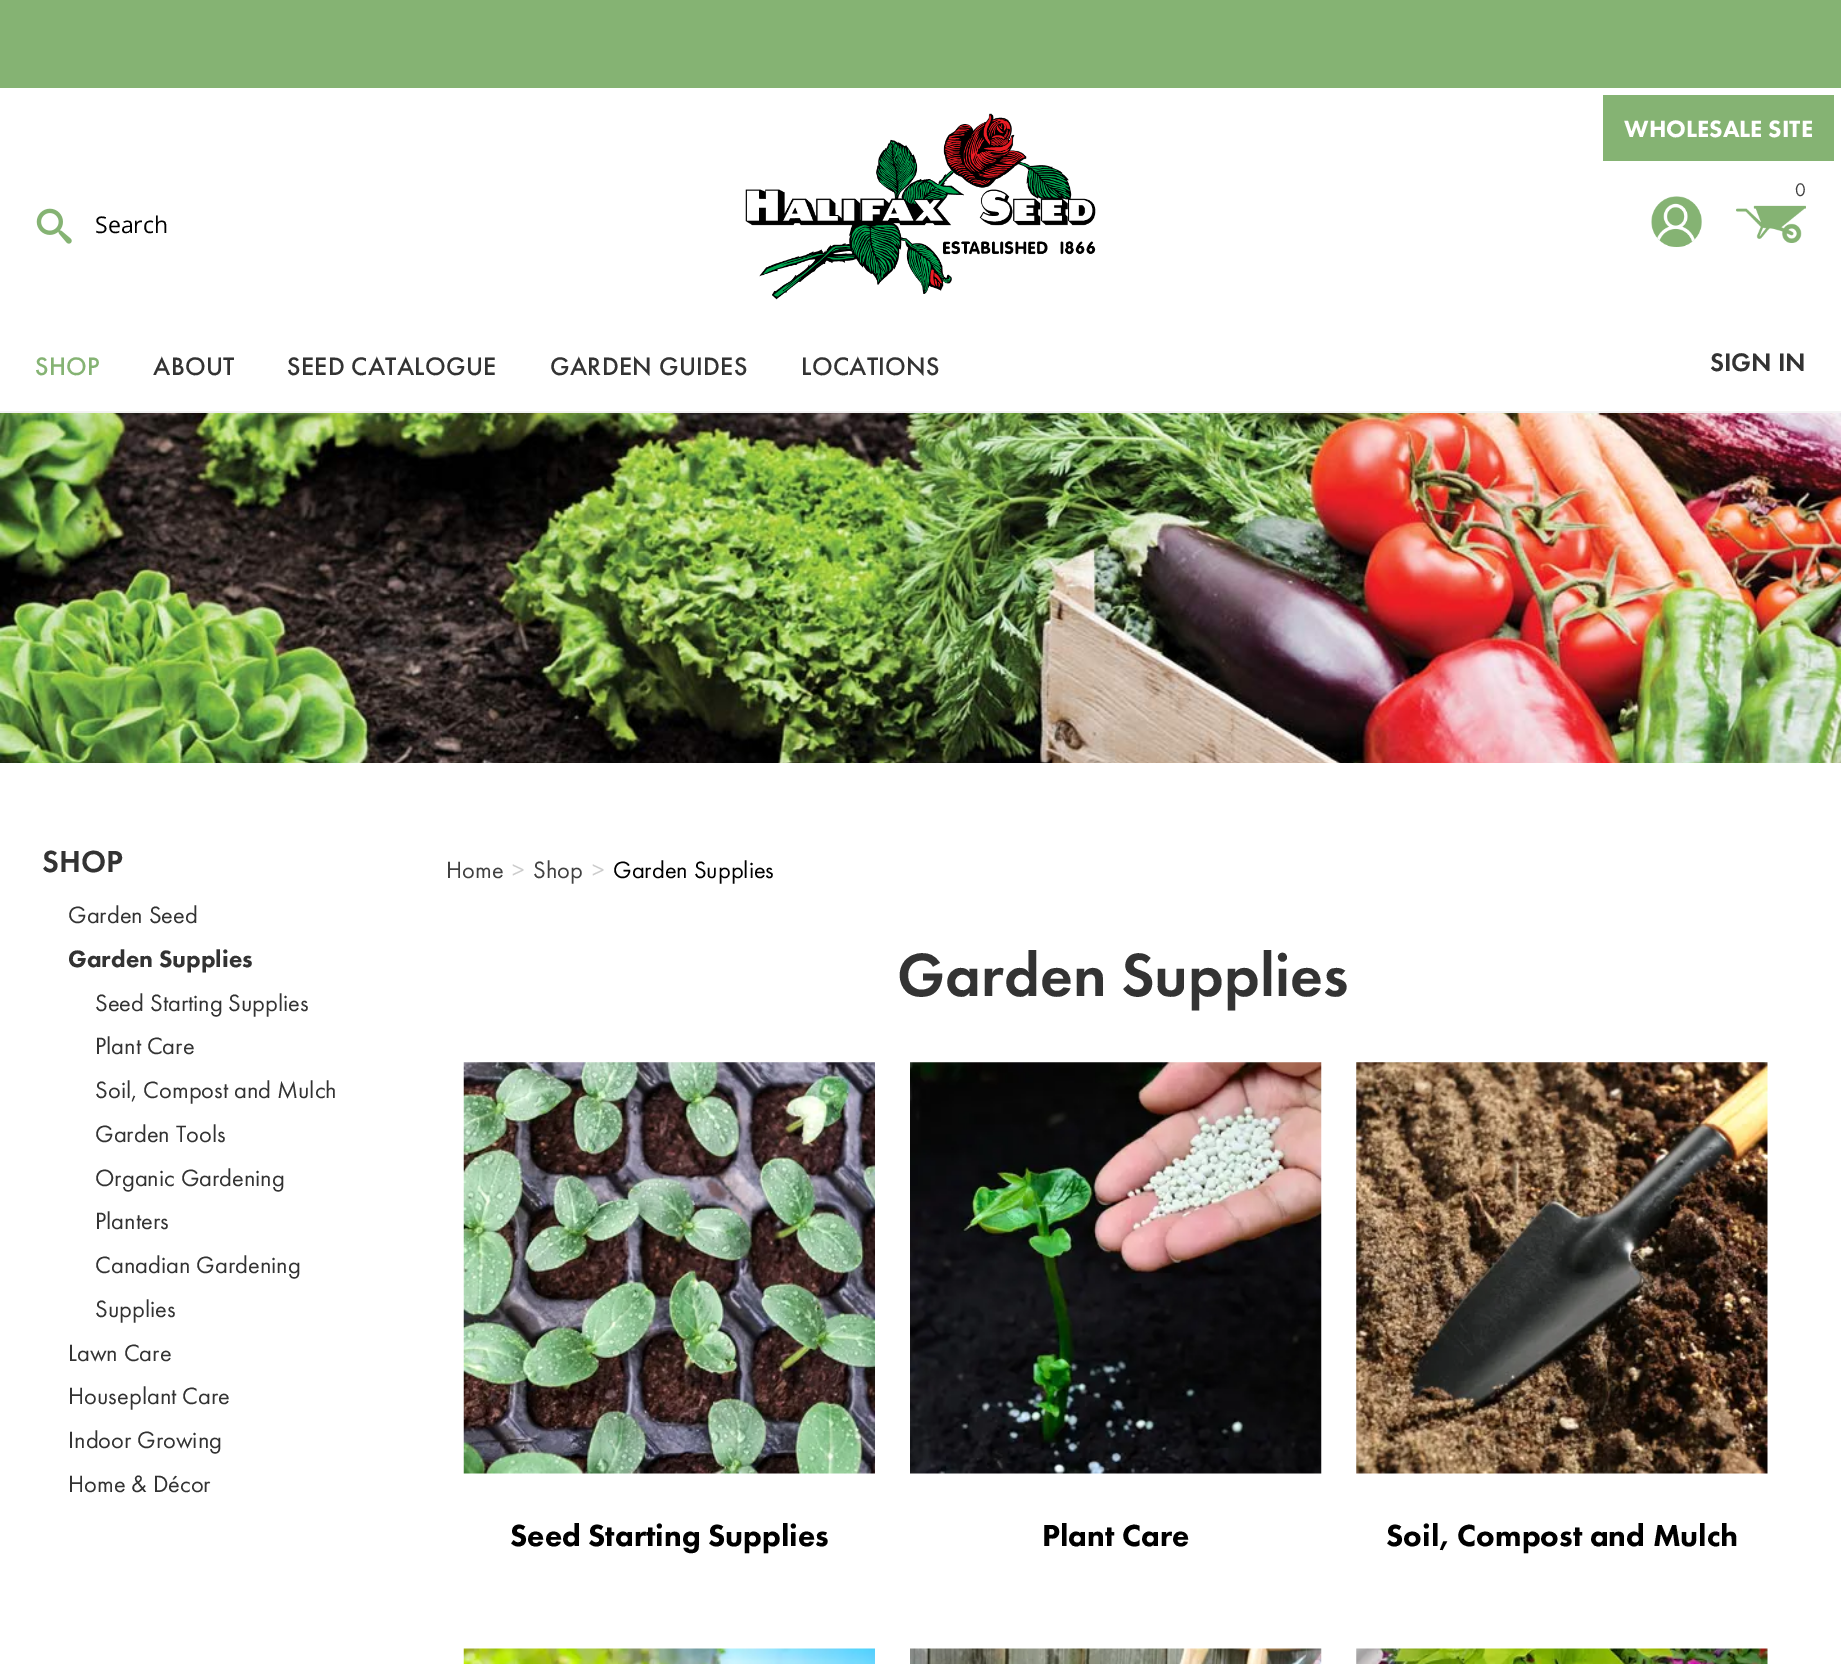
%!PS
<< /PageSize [1841 1664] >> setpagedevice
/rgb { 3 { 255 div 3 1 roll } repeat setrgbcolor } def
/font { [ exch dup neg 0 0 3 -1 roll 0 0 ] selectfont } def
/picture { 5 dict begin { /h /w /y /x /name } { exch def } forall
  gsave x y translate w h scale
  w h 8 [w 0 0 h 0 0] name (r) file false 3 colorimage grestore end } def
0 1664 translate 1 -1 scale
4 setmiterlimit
255 255 255 rgb
0 0 1841 1664 rectfill
133 179 115 rgb
0 0 1841 88 rectfill
243 243 243 rgb
0 411 1841 2 rectfill
(img/1.rgb) 745 113 351 187 picture
133 179 115 rgb
1603 95 231 66 rectfill
(img/2.rgb) 1736 205 70 38 picture
(img/3.rgb) 1651 196 51 51 picture
(img/4.rgb) 36 208 36 36 picture
(img/5.rgb) 0 413 1841 350 picture
(img/6.rgb) 463 1062 412 412 picture
(img/7.rgb) 910 1062 412 412 picture
(img/8.rgb) 1356 1062 412 412 picture
(img/9.rgb) 463 1648 412 16 picture
(img/10.rgb) 910 1648 412 16 picture
(img/11.rgb) 1356 1648 412 16 picture
/FuturaPT-Black 24.5 font
255 255 255 rgb
1624 137 moveto (WHOLESALE SITE) show
/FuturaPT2-Medium 26.25 font
133 179 115 rgb
35 375 moveto 0.3 0 (SHOP) ashow
51 51 51 rgb
153 375 moveto 0.3 0 (ABOUT) ashow
287 375 moveto 0.3 0 (SEED CATALOGUE) ashow
550 375 moveto 0.3 0 (GARDEN GUIDES) ashow
801 375 moveto 0.3 0 (LOCATIONS) ashow
/FuturaPT-Regular 19 font
65 65 65 rgb
1795 196 moveto (0) show
/FuturaPT-Medium 26.25 font
51 51 51 rgb
1710 371 moveto (SIGN IN) show
/OpenSans-Regular 23 font
0 0 0 rgb
95 233 moveto (Search) show
/FuturaPT-Medium 31.5 font
51 51 51 rgb
42 872 moveto (SHOP) show
/FuturaPT-Regular 24.5 font
68 923 moveto (Garden Seed) show
/FuturaPT-Black 24.5 font
68 967 moveto (Garden Supplies) show
/FuturaPT-Regular 24.5 font
[
  [(Seed Starting Supplies) 95 1011]
  [(Plant Care) 95 1054]
  [(Soil, Compost and Mulch) 95 1098]
  [(Garden Tools) 95 1142]
  [(Organic Gardening) 95 1186]
  [(Planters) 95 1229]
  [(Canadian Gardening) 95 1273]
  [(Supplies) 95 1317]
  [(Lawn Care) 68 1361]
  [(Houseplant Care) 68 1404]
  [(Indoor Growing) 68 1448]
  [(Home & Décor) 68 1492]
] { aload pop moveto show } forall
65 65 65 rgb
446 878 moveto (Home) show
204 204 204 rgb
512 878 moveto (>) show
65 65 65 rgb
533 878 moveto (Shop) show
204 204 204 rgb
592 878 moveto (>) show
0 0 0 rgb
613 878 moveto (Garden Supplies) show
/FuturaPT-Medium 63 font
51 51 51 rgb
897 996 moveto (Garden Supplies) show
/FuturaPT-Black 31.5 font
0 0 0 rgb
[
  [(Seed Starting Supplies) 510 1546]
  [(Plant Care) 1042 1546]
  [(Soil, Compost and Mulch) 1386 1546]
] { aload pop moveto show } forall
showpage
